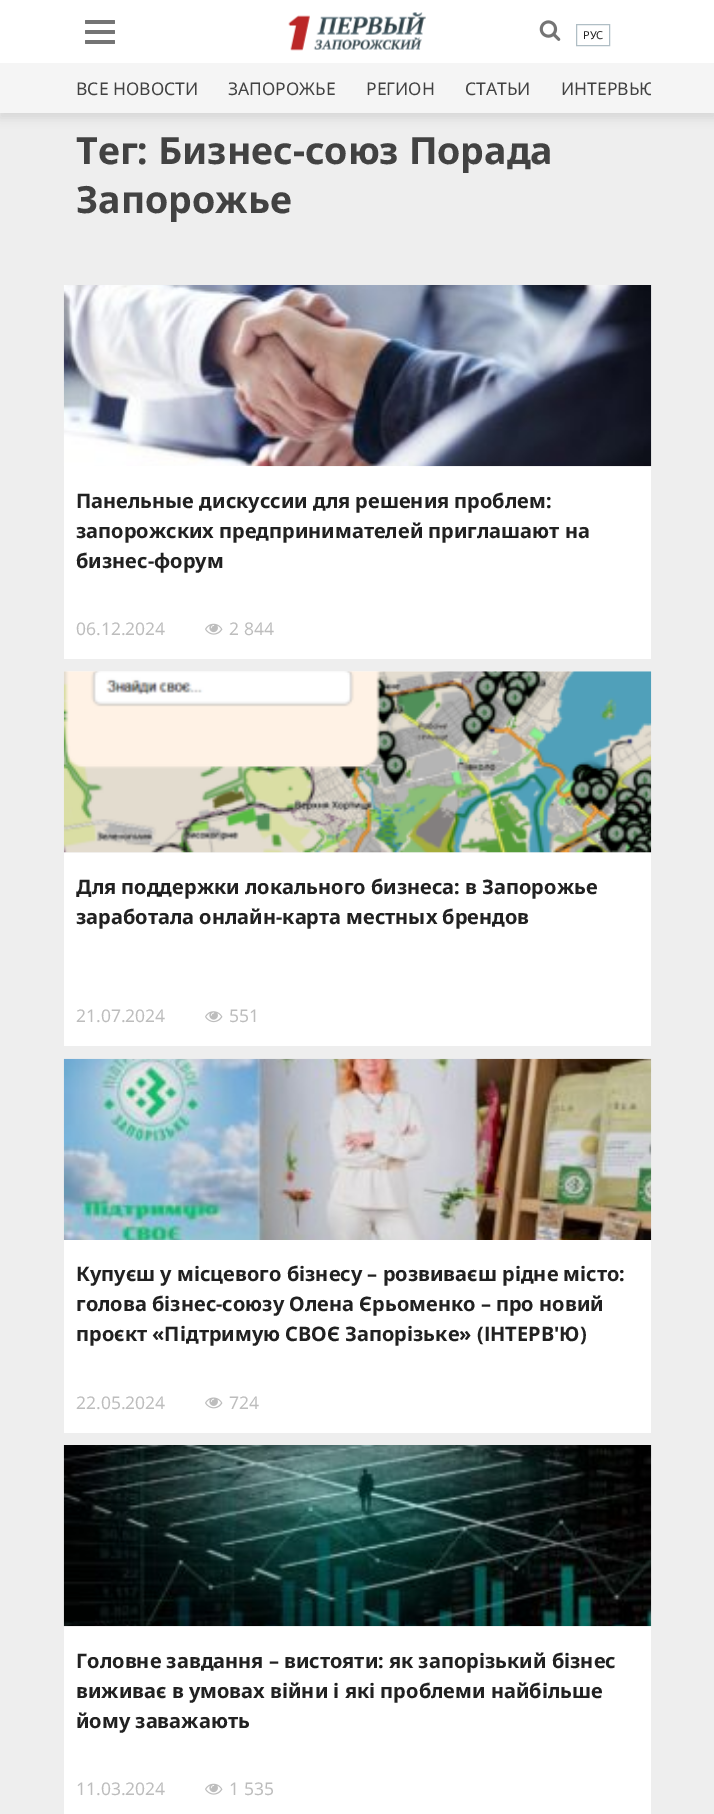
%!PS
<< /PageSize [714 1814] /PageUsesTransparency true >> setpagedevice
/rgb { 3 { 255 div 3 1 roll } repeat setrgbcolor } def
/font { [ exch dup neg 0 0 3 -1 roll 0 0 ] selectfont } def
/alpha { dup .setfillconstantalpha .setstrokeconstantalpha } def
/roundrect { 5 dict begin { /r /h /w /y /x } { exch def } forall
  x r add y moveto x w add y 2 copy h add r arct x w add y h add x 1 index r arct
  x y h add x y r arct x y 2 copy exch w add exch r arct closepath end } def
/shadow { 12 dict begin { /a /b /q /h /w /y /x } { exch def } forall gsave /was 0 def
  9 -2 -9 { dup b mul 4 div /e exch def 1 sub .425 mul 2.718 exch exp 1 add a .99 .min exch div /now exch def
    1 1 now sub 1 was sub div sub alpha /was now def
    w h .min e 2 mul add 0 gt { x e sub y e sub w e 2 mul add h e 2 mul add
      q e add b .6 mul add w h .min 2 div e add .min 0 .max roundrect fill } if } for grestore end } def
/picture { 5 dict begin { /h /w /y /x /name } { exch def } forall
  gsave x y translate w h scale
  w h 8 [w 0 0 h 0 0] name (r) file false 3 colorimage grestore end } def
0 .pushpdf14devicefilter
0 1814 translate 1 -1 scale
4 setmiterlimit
238 238 238 rgb
0 0 714 1814 rectfill
0 0 0 rgb
0 5 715 113 0 5 0.1 shadow
255 255 255 rgb
0 0 714 63 rectfill
116 116 116 rgb
85 20 30 4 1 roundrect fill
85 30 30 4 1 roundrect fill
85 40 30 4 1 roundrect fill
(img/1.rgb) 539 20 22 21 picture
(img/2.rgb) 288 12 138 39 picture
176 190 197 rgb
576.5 24.5 33 21 rectstroke
245 245 245 rgb
0 63 714 50 rectfill
255 255 255 rgb
64 466 587 193 rectfill
(img/3.rgb) 63 285 589 182 picture
(img/4.rgb) 205 623 18 12 picture
64 853 587 193 rectfill
246 246 246 rgb
64 671 587 182 rectfill
(img/5.rgb) 63 671 589 182 picture
(img/6.rgb) 205 1011 18 12 picture
255 255 255 rgb
64 1240 587 193 rectfill
(img/7.rgb) 63 1058 589 182 picture
(img/8.rgb) 205 1397 18 12 picture
64 1626 587 188 rectfill
(img/9.rgb) 63 1445 589 182 picture
(img/4.rgb) 205 1783 18 12 picture
/NotoSans-Regular 11 font
33 33 33 rgb
583 39 moveto (РУС) show
/NotoSans-Regular 17.5 font
66 66 66 rgb
[
  [(ВСЕ НОВОСТИ) 76 95]
  [(ЗАПОРОЖЬЕ) 228 95]
  [(РЕГИОН) 366 95]
  [(СТАТЬИ) 465 95]
] { aload pop moveto show } forall
gsave
64 63 587 50 rectclip
561 95 moveto (ИНТЕРВЬЮ) show
grestore
/NotoSans-Bold 37.5 font
76 164 moveto (Тег: Бизнес-союз Порада) show
76 213 moveto (Запорожье) show
/NotoSans-Bold 20 font
33 33 33 rgb
[
  [(Панельные дискуссии для решения проблем:) 76 508]
  [(запорожских предпринимателей приглашают на) 76 538]
  [(бизнес-форум) 76 568]
] { aload pop moveto show } forall
/NotoSans-Regular 17.5 font
189 189 189 rgb
76 635 moveto (06.12.2024) show
229 635 moveto (2 844) show
/NotoSans-Bold 20 font
33 33 33 rgb
76 894 moveto (Для поддержки локального бизнеса: в Запорожье) show
76 924 moveto (заработала онлайн-карта местных брендов) show
/NotoSans-Regular 17.5 font
189 189 189 rgb
76 1022 moveto (21.07.2024) show
229 1022 moveto (551) show
/NotoSans-Bold 20 font
33 33 33 rgb
[
  [(Купуєш у місцевого бізнесу – розвиваєш рідне місто:) 76 1281]
  [(голова бізнес-союзу Олена Єрьоменко – про новий) 76 1311]
  [(проєкт «Підтримую СВОЄ Запорізьке» \(ІНТЕРВ'Ю\)) 76 1341]
] { aload pop moveto show } forall
/NotoSans-Regular 17.5 font
189 189 189 rgb
76 1409 moveto (22.05.2024) show
229 1409 moveto (724) show
/NotoSans-Bold 20 font
33 33 33 rgb
[
  [(Головне завдання – вистояти: як запорізький бізнес) 76 1668]
  [(виживає в умовах війни і які проблеми найбільше) 76 1698]
  [(йому заважають) 76 1728]
] { aload pop moveto show } forall
/NotoSans-Regular 17.5 font
189 189 189 rgb
76 1795 moveto (11.03.2024) show
229 1795 moveto (1 535) show
.poppdf14devicefilter showpage
